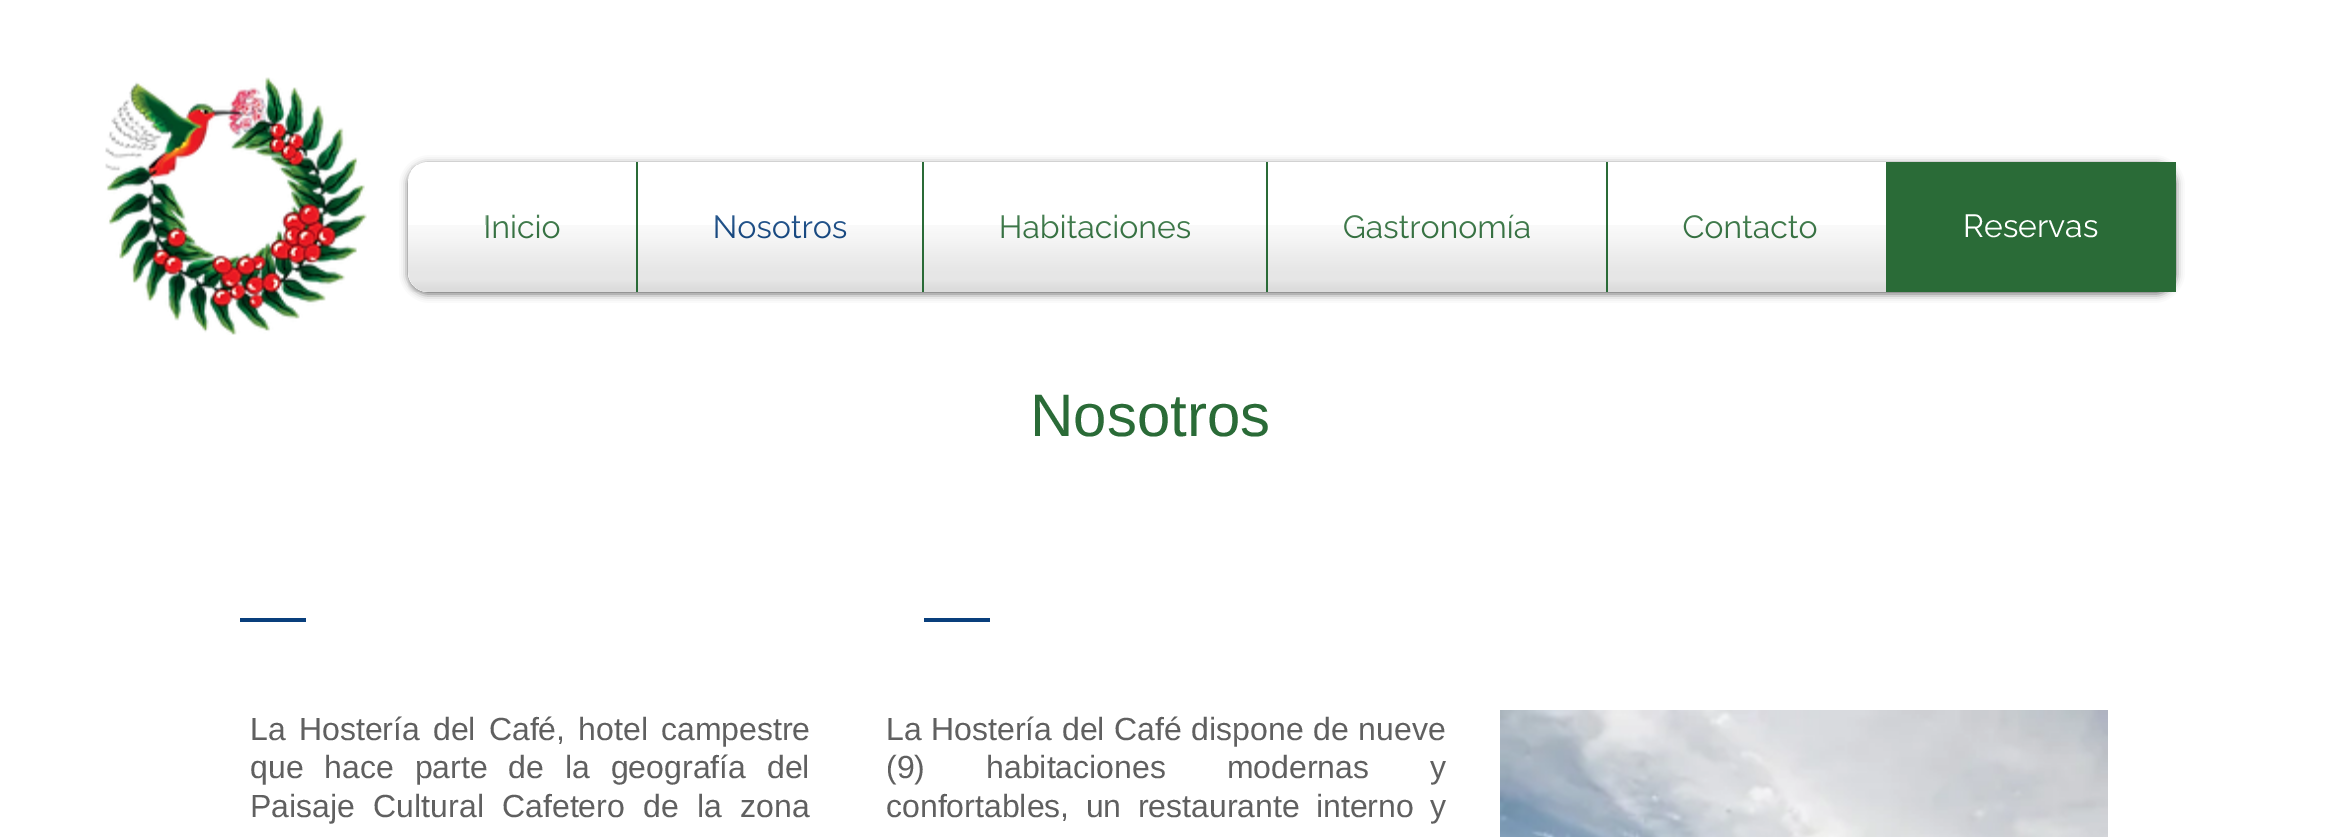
%!PS
<< /PageSize [2327 837] /PageUsesTransparency true >> setpagedevice
/rgb { 3 { 255 div 3 1 roll } repeat setrgbcolor } def
/font { [ exch dup neg 0 0 3 -1 roll 0 0 ] selectfont } def
/alpha { dup .setfillconstantalpha .setstrokeconstantalpha } def
/roundrect { 5 dict begin { /r /h /w /y /x } { exch def } forall
  x r add y moveto x w add y 2 copy h add r arct x w add y h add x 1 index r arct
  x y h add x y r arct x y 2 copy exch w add exch r arct closepath end } def
/shadow { 12 dict begin { /a /b /q /h /w /y /x } { exch def } forall gsave /was 0 def
  9 -2 -9 { dup b mul 4 div /e exch def 1 sub .425 mul 2.718 exch exp 1 add a .99 .min exch div /now exch def
    1 1 now sub 1 was sub div sub alpha /was now def
    w h .min e 2 mul add 0 gt { x e sub y e sub w e 2 mul add h e 2 mul add
      q e add b .6 mul add w h .min 2 div e add .min 0 .max roundrect fill } if } for grestore end } def
/picture { 5 dict begin { /h /w /y /x /name } { exch def } forall
  gsave x y translate w h scale
  w h 8 [w 0 0 h 0 0] name (r) file false 3 colorimage grestore end } def
0 .pushpdf14devicefilter
0 837 translate 1 -1 scale
4 setmiterlimit
255 255 255 rgb
0 0 2327 837 rectfill
(img/1.rgb) 105 77 262 258 picture
0 0 0 rgb
408 164 1768 130 20 4 0.6 shadow
(img/2.rgb) 411 165 7 6 picture
(img/3.rgb) 408 272 20 20 picture
255 255 255 rgb
428 162 moveto 636 162 lineto 636 292 lineto 428 292 lineto 417 292 408 283 408 272 curveto 408 182 lineto 408 171 417 162 428 162 curveto closepath fill
[
  [638 162 284 130 255 255 255]
  [636 162 2 130 42 107 55]
  [924 162 342 130 255 255 255]
  [922 162 2 130 42 107 55]
  [1268 162 338 130 255 255 255]
  [1266 162 2 130 42 107 55]
  [1608 162 278 130 255 255 255]
  [1606 162 2 130 42 107 55]
  [1886 162 290 130 42 107 55]
  [240 618 66 4 9 63 124]
  [924 618 66 4 9 63 124]
] { aload pop rgb rectfill } forall
(img/14.rgb) 1500 710 608 127 picture
/Raleway-Regular 32 font
42 107 55 rgb
483 238 moveto (Inicio) show
(img/4.rgb) 486 214 74 24 picture
(img/5.rgb) 408 225 228 67 picture
9 63 124 rgb
713 238 moveto (Nosotros) show
(img/6.rgb) 715 215 131 24 picture
(img/7.rgb) 638 225 284 67 picture
42 107 55 rgb
999 238 moveto (Habitaciones) show
(img/8.rgb) 1001 214 189 24 picture
(img/9.rgb) 924 225 342 67 picture
1343 238 moveto (Gastronomía) show
(img/10.rgb) 1344 214 186 24 picture
(img/11.rgb) 1268 225 338 67 picture
1682 238 moveto (Contacto) show
(img/12.rgb) 1683 215 134 23 picture
(img/13.rgb) 1608 225 278 67 picture
255 255 255 rgb
1963 237 moveto (Reservas) show
/LiberationSans-Regular 60 font
42 107 55 rgb
1030 436 moveto (Nosotros) show
/LiberationSans-Regular 32 font
96 96 96 rgb
250 740 moveto 4.25 0 32 (La Hostería del Café, hotel campestre) widthshow
250 778 moveto 12 0 32 (que hace parte de la geografía del) widthshow
250 817 moveto 9.5 0 32 (Paisaje Cultural Cafetero de la zona) widthshow
886 740 moveto 0.75 0 32 (La Hostería del Café dispone de nueve) widthshow
886 778 moveto 52 0 32 (\(9\) habitaciones modernas y) widthshow
886 817 moveto 7.5 0 32 (confortables, un restaurante interno y) widthshow
.poppdf14devicefilter showpage
